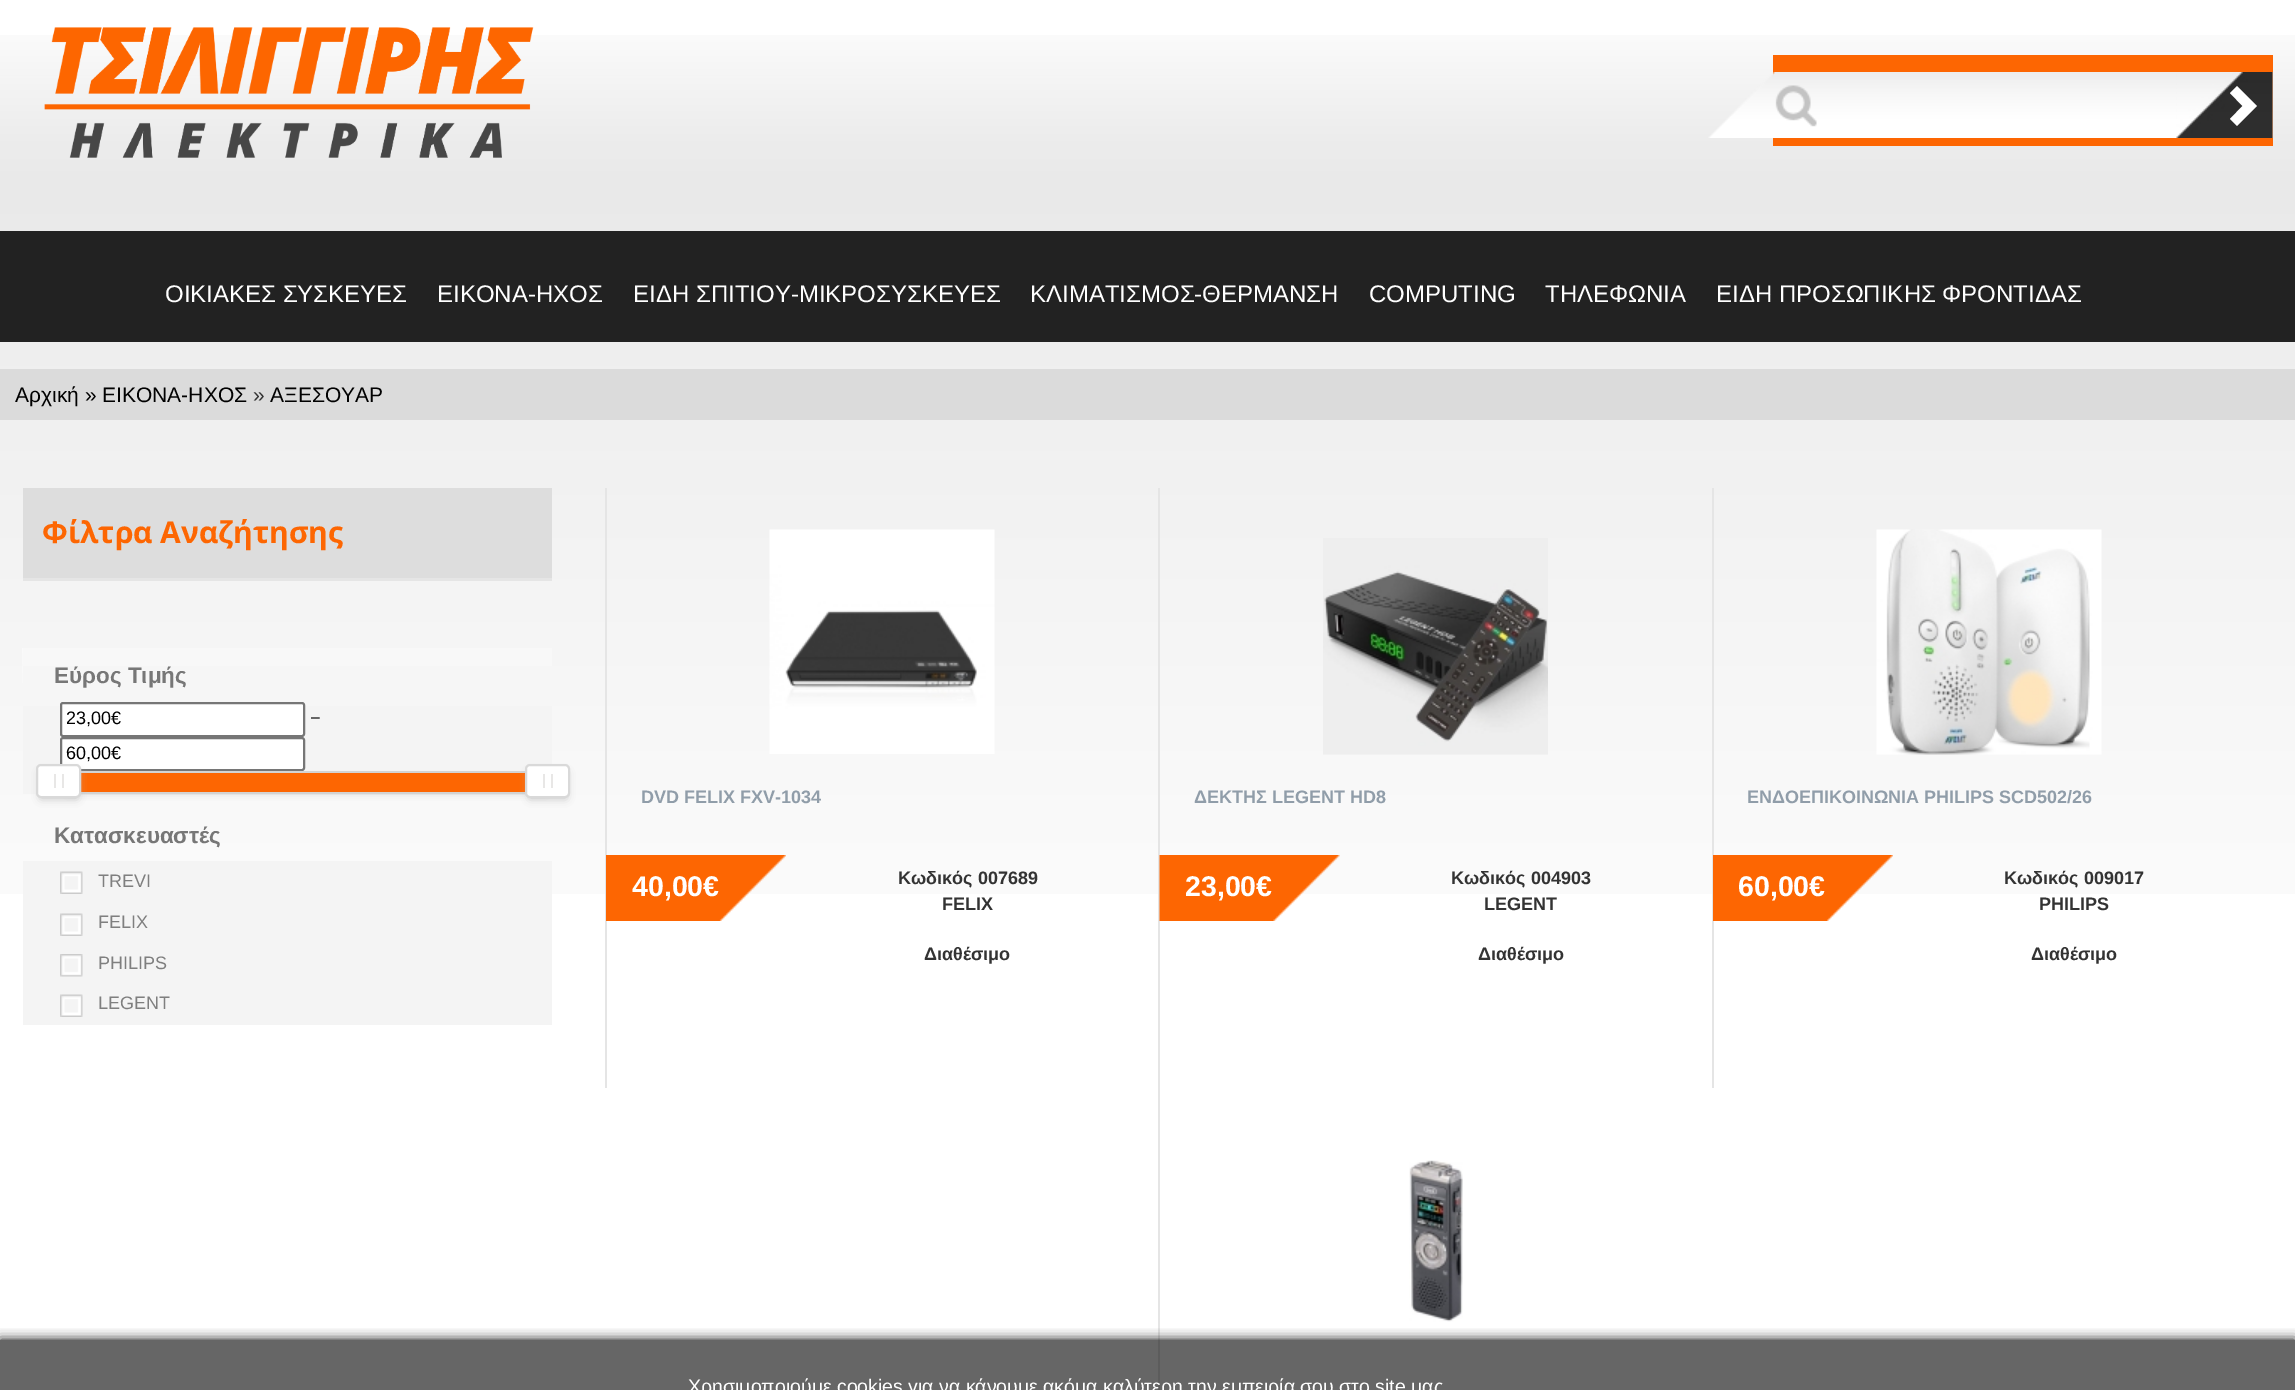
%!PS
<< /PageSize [2295 1390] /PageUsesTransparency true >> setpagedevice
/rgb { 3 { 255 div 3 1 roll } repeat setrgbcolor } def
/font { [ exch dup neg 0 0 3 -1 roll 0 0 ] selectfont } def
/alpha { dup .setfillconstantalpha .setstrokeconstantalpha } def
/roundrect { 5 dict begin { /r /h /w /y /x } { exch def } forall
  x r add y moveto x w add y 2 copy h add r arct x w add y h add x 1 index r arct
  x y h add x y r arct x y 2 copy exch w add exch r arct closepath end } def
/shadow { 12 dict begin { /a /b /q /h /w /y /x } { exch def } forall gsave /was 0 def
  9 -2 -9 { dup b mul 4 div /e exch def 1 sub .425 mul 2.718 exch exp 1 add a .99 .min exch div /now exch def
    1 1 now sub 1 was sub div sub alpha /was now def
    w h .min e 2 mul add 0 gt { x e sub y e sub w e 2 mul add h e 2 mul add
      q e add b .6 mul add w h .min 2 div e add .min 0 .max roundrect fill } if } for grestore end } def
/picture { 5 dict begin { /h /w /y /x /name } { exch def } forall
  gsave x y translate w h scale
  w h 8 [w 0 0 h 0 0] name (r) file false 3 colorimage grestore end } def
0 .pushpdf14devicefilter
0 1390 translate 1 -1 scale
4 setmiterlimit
255 255 255 rgb
0 0 2295 1390 rectfill
102 102 102 rgb
0 1340 2295 50 rectfill
(img/1.rgb) 0 35 2295 859 picture
(img/2.rgb) 44 27 490 131 picture
253 102 2 rgb
1773 55 500 91 rectfill
(img/3.rgb) 1708 72 565 66 picture
(img/4.rgb) 2176 72 97 66 picture
255 255 255 rgb
2230 119 moveto 2237 126 lineto 2257 106 lineto 2237 86 lineto 2230 93 lineto 2242.5 106 lineto closepath fill
[
  [0 231 2295 111 34 34 34]
  [0 369 2295 51 219 219 219]
  [23 488 529 90 221 221 221]
  [23 578 529 3 229 229 229]
] { aload pop rgb rectfill } forall
(img/5.rgb) 22 648 1 35 picture
248 248 248 rgb
23 648 529 18 rectfill
244 244 244 rgb
23 706 529 88 rectfill
255 255 255 rgb
61 703 243 33 2 roundrect gsave fill grestore
118 118 118 rgb
2 setlinewidth
stroke
255 255 255 rgb
61 738 243 32 2 roundrect gsave fill grestore
118 118 118 rgb
stroke
187 187 187 rgb
68 783 477 8 0 4.5 1 shadow
211 211 211 rgb
61 772 490 21 rectstroke
253 102 2 rgb
81 773 444 19 rectfill
187 187 187 rgb
41 773 36 25 0 4.5 1 shadow
255 255 255 rgb
37 765 43 32 4 roundrect gsave fill grestore
217 217 217 rgb
stroke
232 231 230 rgb
54 774 2 14 rectfill
62 774 2 14 rectfill
187 187 187 rgb
530 773 36 25 0 4.5 1 shadow
255 255 255 rgb
526 765 43 32 4 roundrect gsave fill grestore
217 217 217 rgb
stroke
[
  [543 774 2 14 232 231 230]
  [551 774 2 14 232 231 230]
  [23 861 529 164 244 244 244]
] { aload pop rgb rectfill } forall
(img/6.rgb) 60 871 23 23 picture
(img/6.rgb) 60 913 23 23 picture
(img/7.rgb) 60 954 23 23 picture
(img/6.rgb) 60 994 23 23 picture
229 229 229 rgb
605 488 2 600 rectfill
(img/8.rgb) 769 529 226 225 picture
(img/9.rgb) 606 855 180 66 picture
1158 488 2 852 rectfill
(img/10.rgb) 1323 538 225 217 picture
(img/11.rgb) 1159 855 181 66 picture
1712 488 2 600 rectfill
(img/12.rgb) 1876 529 226 226 picture
(img/9.rgb) 1713 855 180 66 picture
92 92 92 rgb
1158 1340 2 50 rectfill
(img/13.rgb) 1409 1160 54 162 picture
gsave
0 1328 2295 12 rectclip
0 0 0 rgb
0 1340 2295 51 0 6 1 shadow
grestore
/LiberationSans-Regular 24 font
255 255 255 rgb
[
  [(ΟΙΚΙΑΚΕΣ ΣΥΣΚΕΥΕΣ) 165 302]
  [(ΕΙΚΟΝΑ-ΗΧΟΣ) 437 302]
  [(ΕΙΔΗ ΣΠΙΤΙΟΥ-ΜΙΚΡΟΣΥΣΚΕΥΕΣ) 633 302]
  [(ΚΛΙΜΑΤΙΣΜΟΣ-ΘΕΡΜΑΝΣΗ) 1030 302]
  [(COMPUTING) 1369 302]
  [(ΤΗΛΕΦΩΝΙΑ) 1545 302]
  [(ΕΙΔΗ ΠΡΟΣΩΠΙΚΗΣ ΦΡΟΝΤΙΔΑΣ) 1716 302]
] { aload pop moveto show } forall
/LiberationSans-Regular 21 font
1 1 1 rgb
15 402 moveto (Αρχική » ΕΙΚΟΝΑ-ΗΧΟΣ) show
51 51 51 rgb
253 402 moveto (») show
1 1 1 rgb
270 402 moveto (ΑΞΕΣΟΥΑΡ) show
/OpenSans-Bold 30 font
253 102 2 rgb
42 543 moveto (Φίλτρα Αναζήτησης) show
/LiberationSans-Bold 22.5 font
119 119 119 rgb
54 683 moveto (Εύρος Τιμής) show
/LiberationSans-Regular 18 font
1 1 1 rgb
66 724 moveto (23,00€) show
51 51 51 rgb
310 724 moveto (−) show
1 1 1 rgb
66 759 moveto (60,00€) show
/LiberationSans-Bold 22.5 font
119 119 119 rgb
54 843 moveto (Kατασκευαστές) show
/LiberationSans-Regular 18 font
127 127 127 rgb
[
  [(TREVI) 98 887]
  [(FELIX) 98 928]
  [(PHILIPS) 98 969]
  [(LEGENT) 98 1009]
] { aload pop moveto show } forall
/LiberationSans-Bold 18 font
144 157 169 rgb
641 803 moveto (DVD FELIX FXV-1034) show
/LiberationSans-Bold 28.5 font
255 255 255 rgb
632 896 moveto (40,00€) show
/LiberationSans-Bold 18 font
51 51 51 rgb
[
  [(Kωδικός 007689) 898 884]
  [(FELIX) 942 910]
  [(Διαθέσιμο) 924 960]
] { aload pop moveto show } forall
144 157 169 rgb
1194 803 moveto (ΔΕΚΤΗΣ LEGENT HD8) show
/LiberationSans-Bold 28.5 font
255 255 255 rgb
1185 896 moveto (23,00€) show
/LiberationSans-Bold 18 font
51 51 51 rgb
[
  [(Kωδικός 004903) 1451 884]
  [(LEGENT) 1484 910]
  [(Διαθέσιμο) 1478 960]
] { aload pop moveto show } forall
144 157 169 rgb
1747 803 moveto (ΕΝΔΟΕΠΙΚΟΙΝΩΝΙΑ PHILIPS SCD502/26) show
/LiberationSans-Bold 28.5 font
255 255 255 rgb
1738 896 moveto (60,00€) show
/LiberationSans-Bold 18 font
51 51 51 rgb
[
  [(Kωδικός 009017) 2004 884]
  [(PHILIPS) 2039 910]
  [(Διαθέσιμο) 2031 960]
] { aload pop moveto show } forall
/LiberationSans-Regular 19.5 font
255 255 255 rgb
688 1393 moveto (Χρησιμοποιούμε cookies για να κάνουμε ακόμα καλύτερη την εμπειρία σου στο site μας) show
.poppdf14devicefilter showpage
